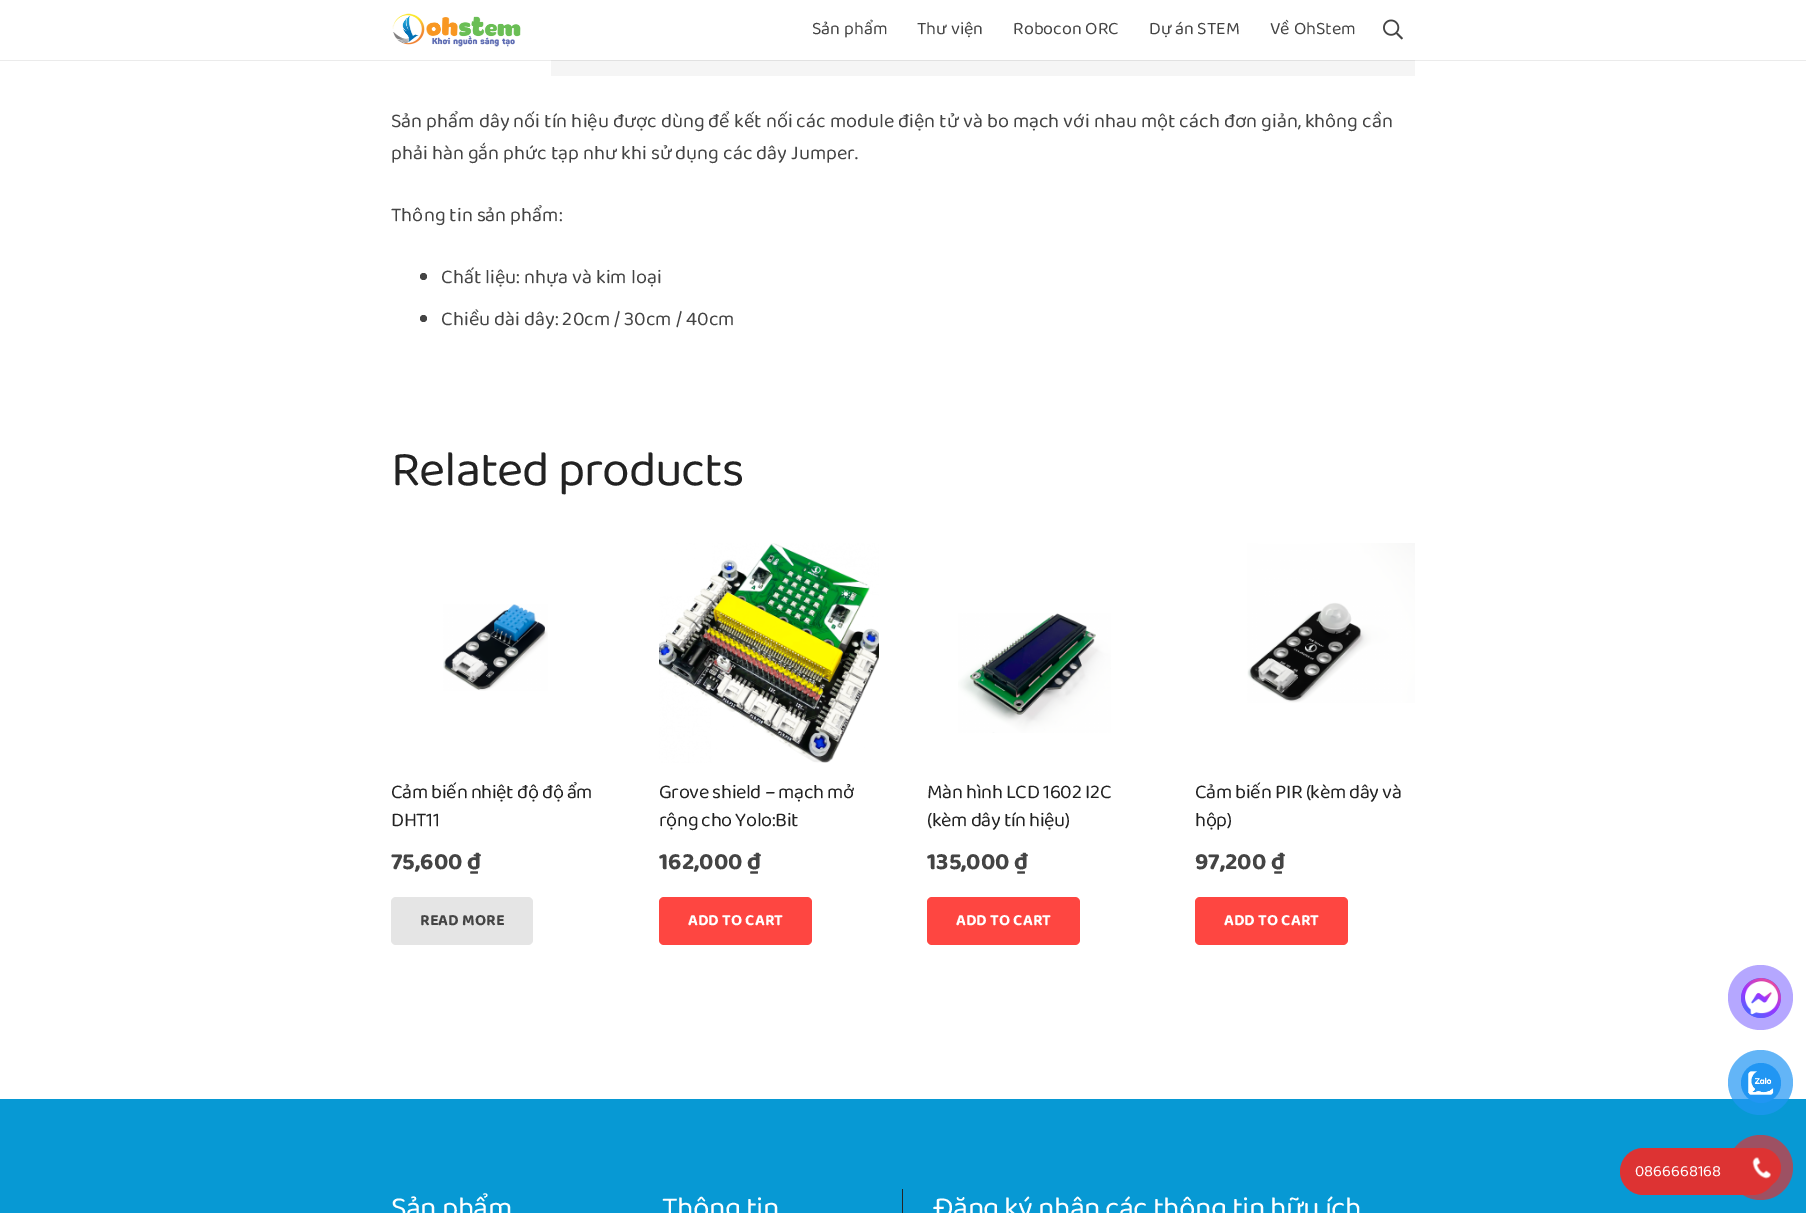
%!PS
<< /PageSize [1806 1213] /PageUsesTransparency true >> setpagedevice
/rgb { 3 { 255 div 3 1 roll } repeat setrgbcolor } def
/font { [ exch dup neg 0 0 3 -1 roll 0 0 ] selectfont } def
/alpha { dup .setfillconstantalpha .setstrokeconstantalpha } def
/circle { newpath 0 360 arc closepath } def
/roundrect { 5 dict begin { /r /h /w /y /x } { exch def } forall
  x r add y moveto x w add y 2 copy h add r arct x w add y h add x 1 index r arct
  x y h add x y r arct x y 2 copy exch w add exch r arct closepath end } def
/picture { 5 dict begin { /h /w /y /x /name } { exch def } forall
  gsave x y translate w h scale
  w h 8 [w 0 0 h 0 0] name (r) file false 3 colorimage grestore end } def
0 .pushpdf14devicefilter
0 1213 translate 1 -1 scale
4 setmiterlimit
255 255 255 rgb
0 0 1806 1213 rectfill
235 235 235 rgb
0 60 1806 1 rectfill
(img/1.rgb) 392 13 129 34 picture
(img/2.rgb) 1383 19 20 21 picture
245 245 245 rgb
551 61 864 15 rectfill
225 225 225 rgb
551 60 864 1 rectfill
68 68 68 rgb
423.5 276.5 3.5 circle fill
423.5 318.5 3.5 circle fill
(img/3.rgb) 443 604 105 87 picture
229 229 229 rgb
391 897 142 48 5 roundrect fill
(img/4.rgb) 659 543 220 220 picture
254 70 65 rgb
659 897 153 48 5 roundrect fill
(img/5.rgb) 958 613 153 120 picture
927 897 153 48 5 roundrect fill
(img/6.rgb) 1247 543 168 160 picture
1195 897 153 48 5 roundrect fill
181 167 255 rgb
1760.5 997.5 32.5 circle fill
106 79 254 rgb
1761 998 20 circle fill
(img/7.rgb) 1741 978 40 40 picture
7 153 212 rgb
0 1099 1806 114 rectfill
0.7 alpha
33 150 243 rgb
1760.5 1082.5 32.5 circle fill
1 alpha
1761 1083 20 circle fill
(img/8.rgb) 1748 1071 26 24 picture
221 51 51 rgb
1620 1148 156 47 23.5 roundrect fill
0.7 alpha
1760.5 1167.5 32.5 circle fill
1 alpha
1761 1168 20 circle fill
(img/9.rgb) 1752 1157 19 22 picture
37 37 37 rgb
902 1189 1 24 rectfill
/BalooDa2-Regular 18 font
68 68 68 rgb
[
  [(Sản phẩm) 812 34]
  [(Thư viện) 917 34]
  [(Robocon ORC) 1013 34]
  [(Dự án STEM) 1149 34]
  [(Về OhStem) 1270 34]
] { aload pop moveto show } forall
/BalooDa2-Regular 20 font
[
  [(Sản phẩm dây nối tín hiệu được dùng để kết nối các module điện tử và bo mạch với nhau một cách đơn giản, không cần) 391 127]
  [(phải hàn gắn phức tạp như khi sử dụng các dây Jumper.) 391 159]
  [(Thông tin sản phẩm:) 391 221]
  [(Chất liệu: nhựa và kim loại) 441 283]
  [(Chiều dài dây: 20cm / 30cm / 40cm) 441 325]
] { aload pop moveto show } forall
/BalooDa2-Regular 50 font
34 34 34 rgb
391 485 moveto -1 0 (Related products) ashow
/BalooDa2-Regular 20 font
391 798 moveto -0.4 0 (Cảm biến nhiệt độ độ ẩm) ashow
391 826 moveto -0.4 0 (DHT11) ashow
/BalooDa2-Bold 24 font
68 68 68 rgb
391 869 moveto (75,600 ₫) show
/BalooDa2-Bold 16 font
420 925 moveto (READ MORE) show
/BalooDa2-Regular 20 font
34 34 34 rgb
659 798 moveto -0.4 0 (Grove shield – mạch mở) ashow
659 826 moveto -0.4 0 (rộng cho Yolo:Bit) ashow
/BalooDa2-Bold 24 font
68 68 68 rgb
659 869 moveto (162,000 ₫) show
/BalooDa2-Bold 16 font
255 255 255 rgb
688 925 moveto (ADD TO CART) show
/BalooDa2-Regular 20 font
34 34 34 rgb
927 798 moveto -0.4 0 (Màn hình LCD 1602 I2C) ashow
927 826 moveto -0.4 0 (\(kèm dây tín hiệu\)) ashow
/BalooDa2-Bold 24 font
68 68 68 rgb
927 869 moveto (135,000 ₫) show
/BalooDa2-Bold 16 font
255 255 255 rgb
956 925 moveto (ADD TO CART) show
/BalooDa2-Regular 20 font
34 34 34 rgb
1195 798 moveto -0.4 0 (Cảm biến PIR \(kèm dây và) ashow
1195 826 moveto -0.4 0 (hộp\)) ashow
/BalooDa2-Bold 24 font
68 68 68 rgb
1195 869 moveto (97,200 ₫) show
/BalooDa2-Bold 16 font
255 255 255 rgb
1224 925 moveto (ADD TO CART) show
/BalooDa2-Regular 16 font
1635 1176 moveto (0866668168) show
/BalooDa2-Regular 30 font
391 1217 moveto -0.6 0 (Sản phẩm) ashow
662 1217 moveto -0.6 0 (Thông tin) ashow
933 1217 moveto -0.6 0 (Đăng ký nhận các thông tin hữu ích) ashow
.poppdf14devicefilter showpage
